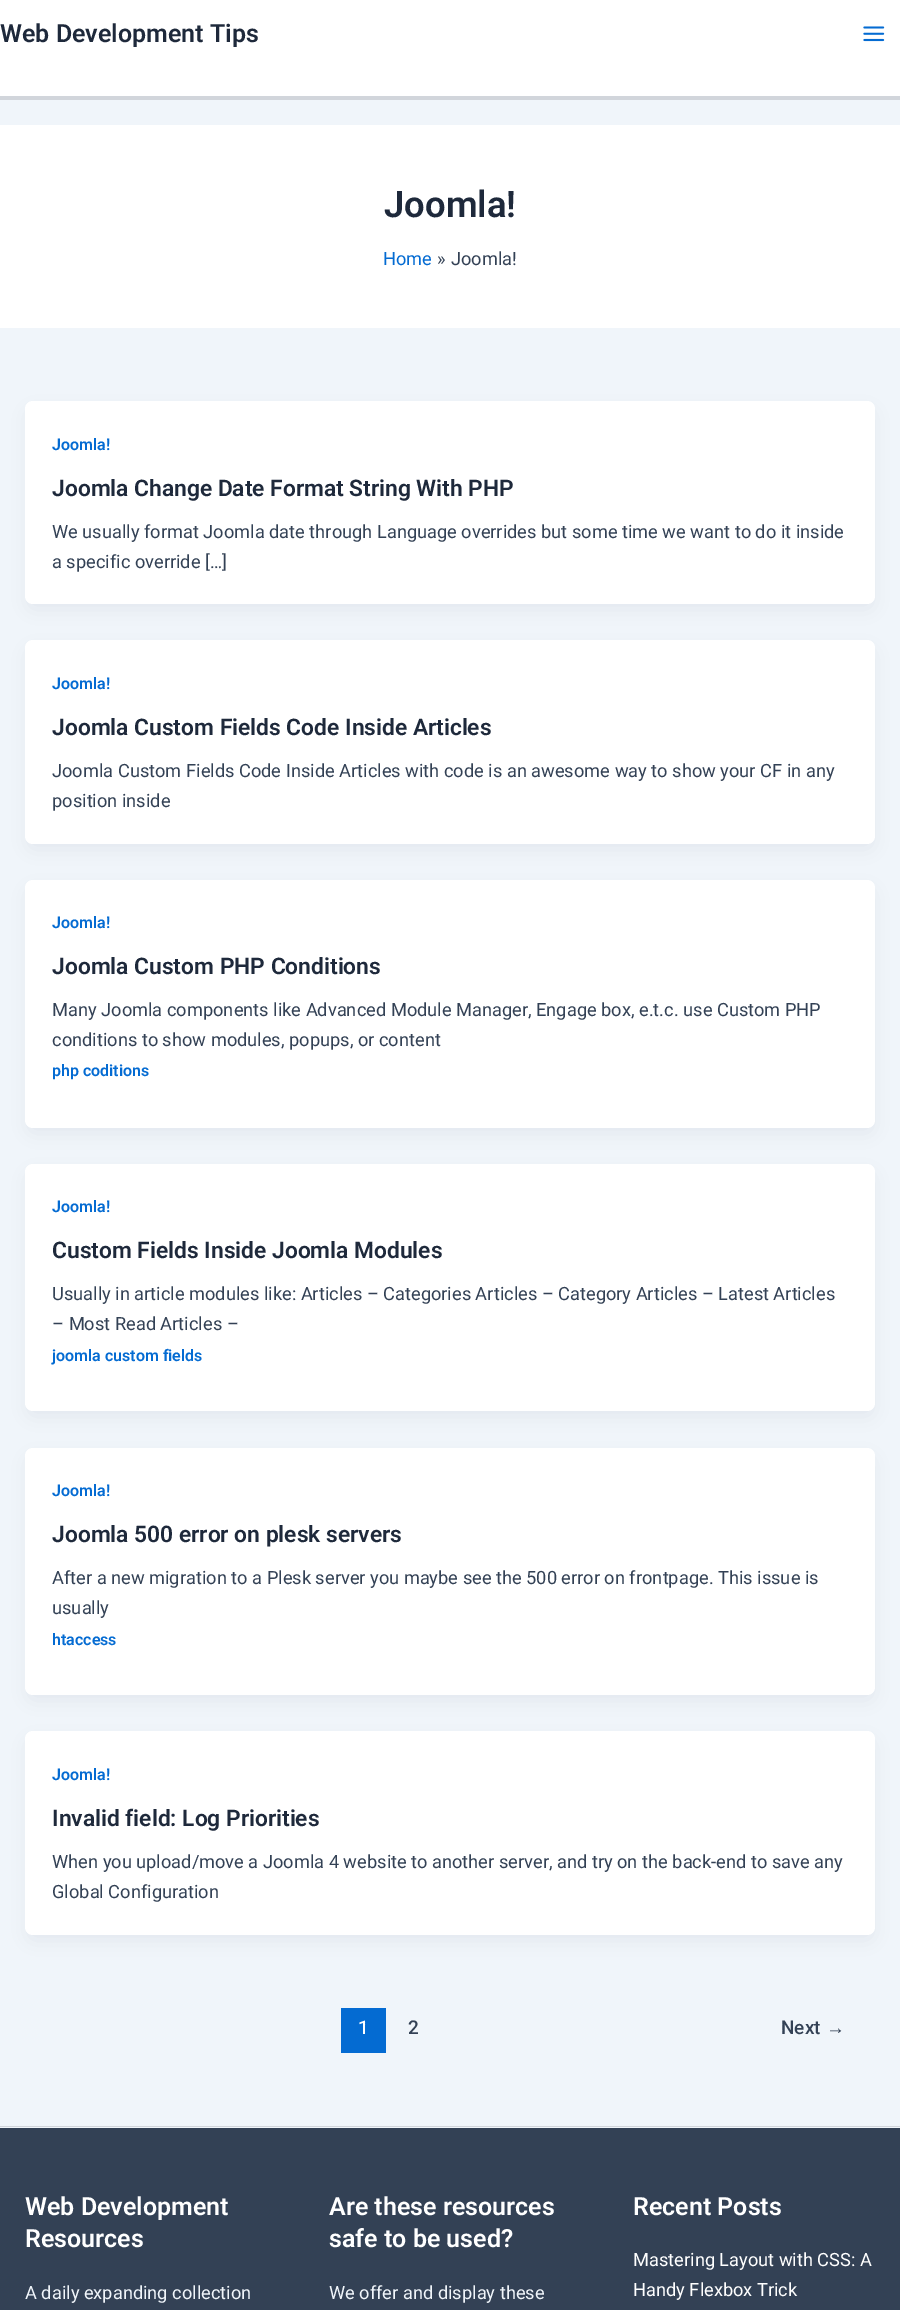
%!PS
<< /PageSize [900 2310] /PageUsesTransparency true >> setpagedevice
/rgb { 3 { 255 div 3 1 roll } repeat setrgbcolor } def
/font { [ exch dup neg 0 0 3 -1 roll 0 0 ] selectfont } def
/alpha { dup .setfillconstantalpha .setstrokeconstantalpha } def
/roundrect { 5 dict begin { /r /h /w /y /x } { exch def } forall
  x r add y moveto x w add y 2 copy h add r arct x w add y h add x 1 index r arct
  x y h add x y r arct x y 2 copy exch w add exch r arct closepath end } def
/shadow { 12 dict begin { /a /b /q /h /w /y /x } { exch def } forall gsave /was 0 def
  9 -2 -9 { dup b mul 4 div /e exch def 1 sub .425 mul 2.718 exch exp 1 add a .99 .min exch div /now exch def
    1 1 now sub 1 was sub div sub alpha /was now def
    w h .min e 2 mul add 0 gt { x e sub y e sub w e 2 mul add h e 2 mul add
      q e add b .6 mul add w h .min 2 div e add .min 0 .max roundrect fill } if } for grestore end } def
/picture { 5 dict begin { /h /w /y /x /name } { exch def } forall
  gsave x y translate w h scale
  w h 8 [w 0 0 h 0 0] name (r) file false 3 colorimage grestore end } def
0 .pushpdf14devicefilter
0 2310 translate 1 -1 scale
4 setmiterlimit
240 245 250 rgb
0 0 900 2310 rectfill
255 255 255 rgb
0 0 900 96 rectfill
209 213 219 rgb
0 96 900 4 rectfill
(img/1.rgb) 863 26 22 16 picture
255 255 255 rgb
0 125 900 203 rectfill
16 24 40 rgb
28 411 845 198 5 9.5 0.05 shadow
255 255 255 rgb
25 401 850 203 8 roundrect fill
16 24 40 rgb
28 650 845 199 5 9.5 0.05 shadow
255 255 255 rgb
25 640 850 204 8 roundrect fill
16 24 40 rgb
28 890 845 243 5 9.5 0.05 shadow
255 255 255 rgb
25 880 850 248 8 roundrect fill
16 24 40 rgb
28 1174 845 242 5 9.5 0.05 shadow
255 255 255 rgb
25 1164 850 247 8 roundrect fill
16 24 40 rgb
28 1458 845 242 5 9.5 0.05 shadow
255 255 255 rgb
25 1448 850 247 8 roundrect fill
16 24 40 rgb
28 1741 845 199 5 9.5 0.05 shadow
255 255 255 rgb
25 1731 850 204 8 roundrect fill
[
  [341 2008 45 45 4 107 210]
  [0 2128 900 182 51 65 85]
  [0 2126 900 1 209 213 219]
] { aload pop rgb rectfill } forall
/Roboto-SemiBold 25 font
30 41 59 rgb
0 42 moveto (Web Development Tips) show
/Roboto-SemiBold 36.5 font
384 217 moveto (Joomla!) show
/Roboto-Regular 18.25 font
4 107 210 rgb
383 265 moveto (Home) show
51 65 85 rgb
437 265 moveto (») show
451 265 moveto (Joomla!) show
/Roboto-SemiBold 16 font
4 107 210 rgb
52 450 moveto (Joomla!) show
/Roboto-SemiBold 22.8 font
30 41 59 rgb
52 496 moveto (Joomla Change Date Format String With PHP) show
/Roboto-Regular 18.25 font
51 65 85 rgb
52 538 moveto (We usually format Joomla date through Language overrides but some time we want to do it inside) show
52 568 moveto (a specific override […]) show
/Roboto-SemiBold 16 font
4 107 210 rgb
52 689 moveto (Joomla!) show
/Roboto-SemiBold 22.8 font
30 41 59 rgb
52 735 moveto (Joomla Custom Fields Code Inside Articles) show
/Roboto-Regular 18.25 font
51 65 85 rgb
52 777 moveto (Joomla Custom Fields Code Inside Articles with code is an awesome way to show your CF in any) show
52 807 moveto (position inside) show
/Roboto-SemiBold 16 font
4 107 210 rgb
52 928 moveto (Joomla!) show
/Roboto-SemiBold 22.8 font
30 41 59 rgb
52 974 moveto (Joomla Custom PHP Conditions) show
/Roboto-Regular 18.25 font
51 65 85 rgb
52 1016 moveto (Many Joomla components like Advanced Module Manager, Engage box, e.t.c. use Custom PHP) show
52 1046 moveto (conditions to show modules, popups, or content) show
/Roboto-SemiBold 16 font
4 107 210 rgb
52 1076 moveto (php coditions) show
52 1212 moveto (Joomla!) show
/Roboto-SemiBold 22.8 font
30 41 59 rgb
52 1258 moveto (Custom Fields Inside Joomla Modules) show
/Roboto-Regular 18.25 font
51 65 85 rgb
52 1300 moveto (Usually in article modules like: Articles – Categories Articles – Category Articles – Latest Articles) show
52 1330 moveto (– Most Read Articles –) show
/Roboto-SemiBold 16 font
4 107 210 rgb
52 1361 moveto (joomla custom fields) show
52 1496 moveto (Joomla!) show
/Roboto-SemiBold 22.8 font
30 41 59 rgb
52 1542 moveto (Joomla 500 error on plesk servers) show
/Roboto-Regular 18.25 font
51 65 85 rgb
52 1584 moveto (After a new migration to a Plesk server you maybe see the 500 error on frontpage. This issue is) show
52 1614 moveto (usually) show
/Roboto-SemiBold 16 font
4 107 210 rgb
52 1645 moveto (htaccess) show
52 1780 moveto (Joomla!) show
/Roboto-SemiBold 22.8 font
30 41 59 rgb
52 1826 moveto (Invalid field: Log Priorities) show
/Roboto-Regular 18.25 font
51 65 85 rgb
52 1868 moveto (When you upload/move a Joomla 4 website to another server, and try on the back-end to save any) show
52 1898 moveto (Global Configuration) show
/Roboto-Medium 19 font
255 255 255 rgb
358 2034 moveto (1) show
51 65 85 rgb
408 2034 moveto (2) show
781 2034 moveto (Next) show
/LiberationSans-Regular 19 font
826 2034 moveto (→) show
/Roboto-SemiBold 25 font
255 255 255 rgb
25 2215 moveto (Web Development) show
25 2247 moveto (Resources) show
/Roboto-Regular 18.25 font
240 245 250 rgb
25 2299 moveto (A daily expanding collection) show
/Roboto-SemiBold 25 font
255 255 255 rgb
329 2215 moveto (Are these resources) show
329 2247 moveto (safe to be used?) show
/Roboto-Regular 18.25 font
240 245 250 rgb
329 2299 moveto (We offer and display these) show
/Roboto-SemiBold 25 font
255 255 255 rgb
633 2215 moveto (Recent Posts) show
/Roboto-Regular 18.25 font
633 2266 moveto (Mastering Layout with CSS: A) show
633 2296 moveto (Handy Flexbox Trick) show
.poppdf14devicefilter showpage
